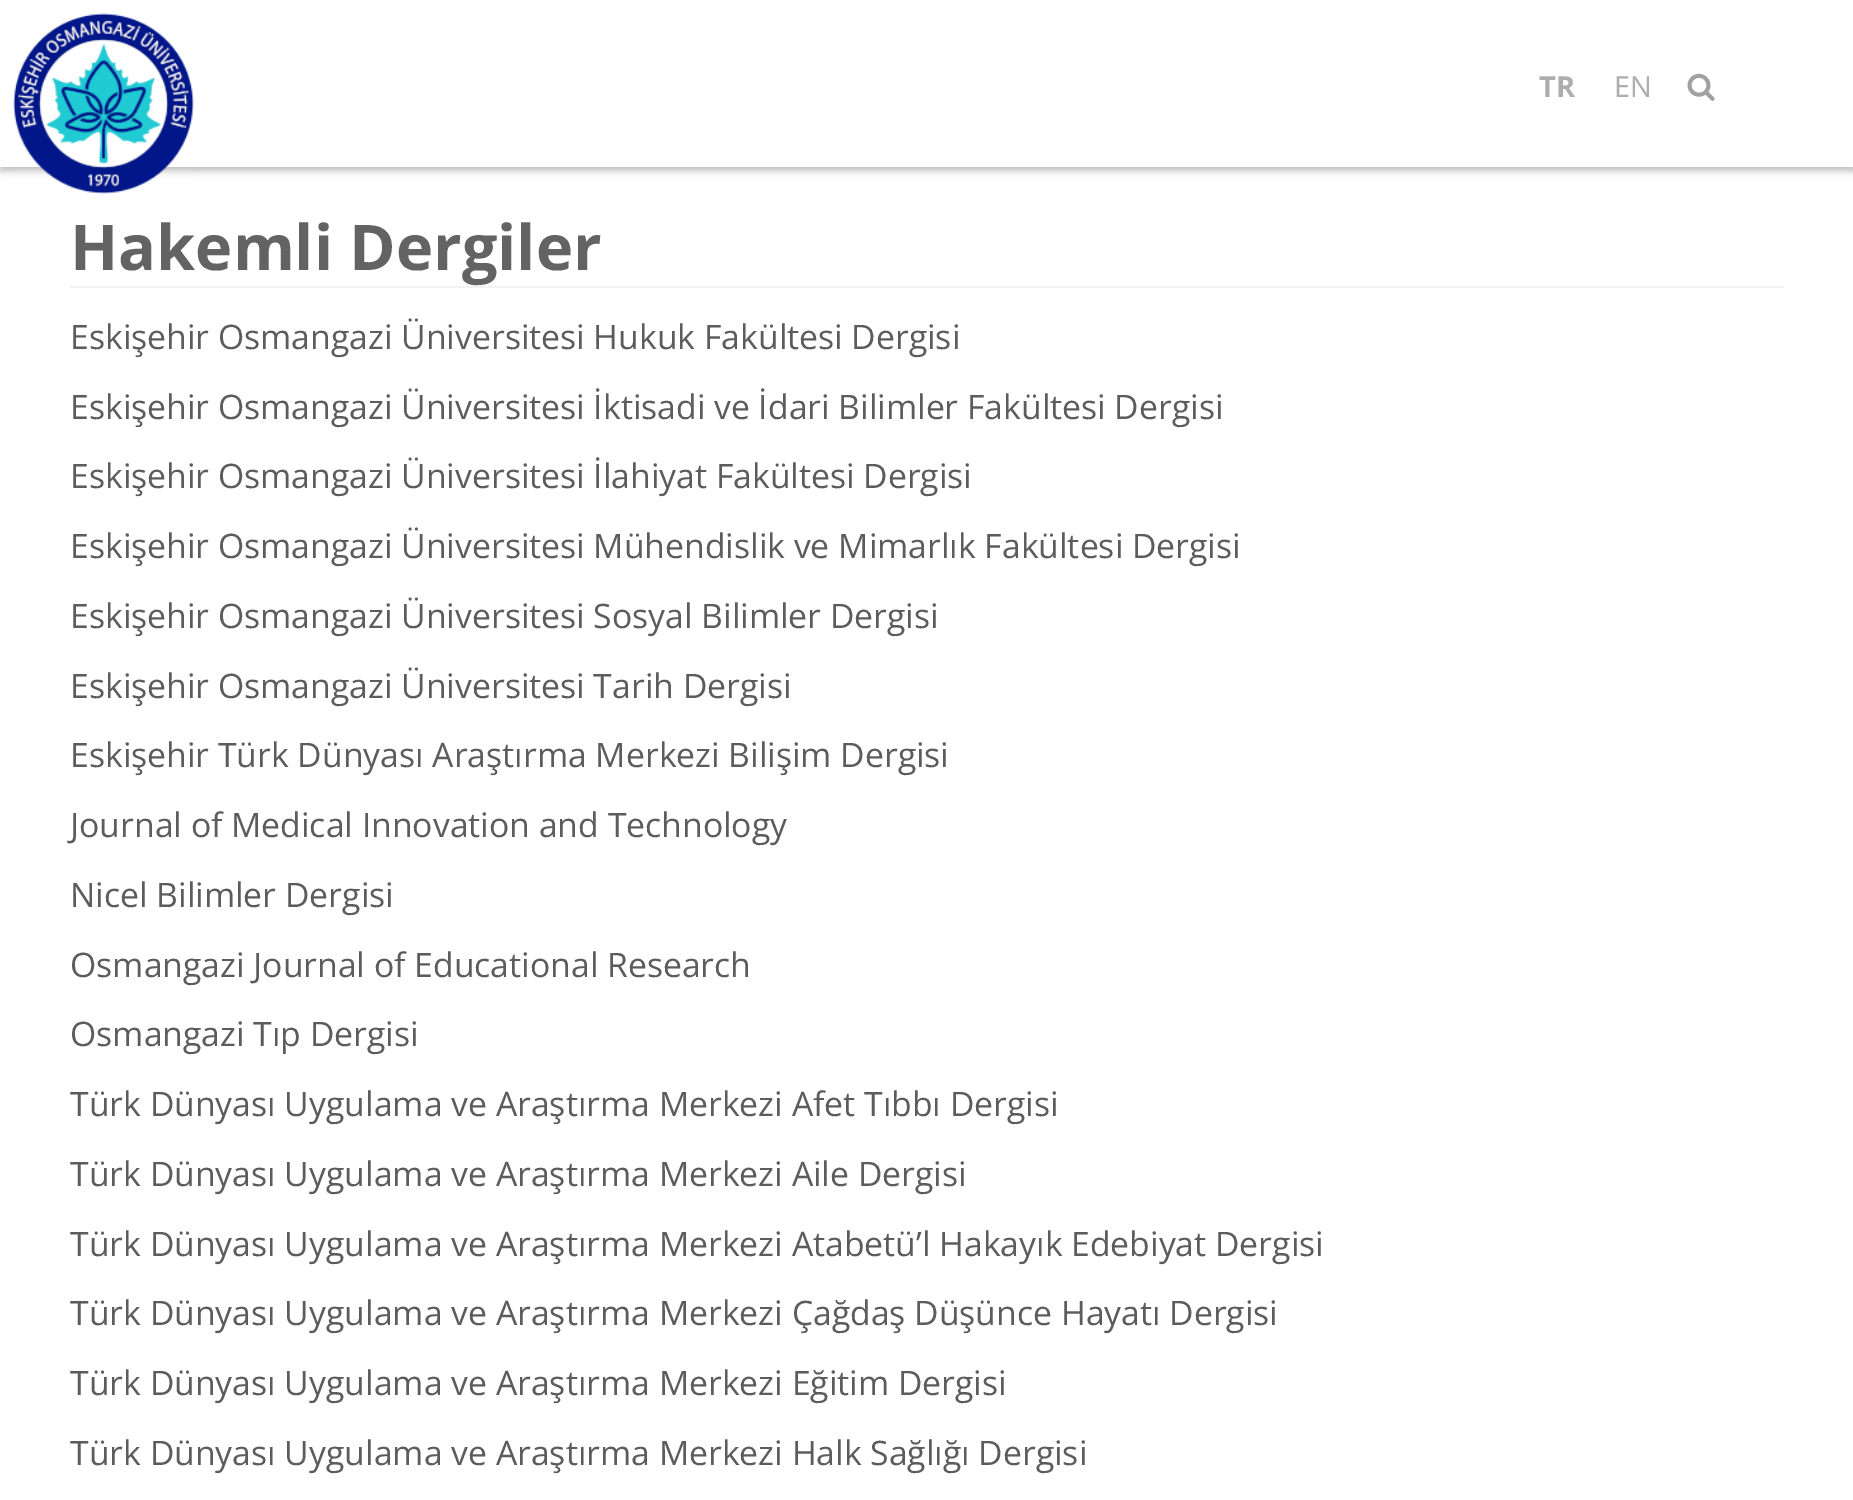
%!PS
<< /PageSize [1853 1500] /PageUsesTransparency true >> setpagedevice
/rgb { 3 { 255 div 3 1 roll } repeat setrgbcolor } def
/font { [ exch dup neg 0 0 3 -1 roll 0 0 ] selectfont } def
/alpha { dup .setfillconstantalpha .setstrokeconstantalpha } def
/roundrect { 5 dict begin { /r /h /w /y /x } { exch def } forall
  x r add y moveto x w add y 2 copy h add r arct x w add y h add x 1 index r arct
  x y h add x y r arct x y 2 copy exch w add exch r arct closepath end } def
/shadow { 12 dict begin { /a /b /q /h /w /y /x } { exch def } forall gsave /was 0 def
  9 -2 -9 { dup b mul 4 div /e exch def 1 sub .425 mul 2.718 exch exp 1 add a .99 .min exch div /now exch def
    1 1 now sub 1 was sub div sub alpha /was now def
    w h .min e 2 mul add 0 gt { x e sub y e sub w e 2 mul add h e 2 mul add
      q e add b .6 mul add w h .min 2 div e add .min 0 .max roundrect fill } if } for grestore end } def
/picture { 5 dict begin { /h /w /y /x /name } { exch def } forall
  gsave x y translate w h scale
  w h 8 [w 0 0 h 0 0] name (r) file false 3 colorimage grestore end } def
0 .pushpdf14devicefilter
0 1500 translate 1 -1 scale
4 setmiterlimit
255 255 255 rgb
0 0 1853 1500 rectfill
0 0 0 rgb
0 5 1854 166 0 3.5 0.25 shadow
255 255 255 rgb
0 0 1853 167 rectfill
(img/2.rgb) 15 53 152 138 picture
(img/1.rgb) 13 13 181 181 picture
(img/3.rgb) 1687 73 28 28 picture
242 242 242 rgb
70 286 1714 2 rectfill
/OpenSans-Bold 29 font
174 173 173 rgb
1539 97 moveto (TR) show
/OpenSans-Regular 29 font
1614 97 moveto (EN) show
/OpenSans-Bold 63 font
99 99 99 rgb
70 270 moveto (Hakemli Dergiler) show
/OpenSans-Regular 33.75 font
93 91 91 rgb
[
  [(Eskişehir Osmangazi Üniversitesi Hukuk Fakültesi Dergisi) 70 349]
  [(Eskişehir Osmangazi Üniversitesi İktisadi ve İdari Bilimler Fakültesi Dergisi) 70 419]
  [(Eskişehir Osmangazi Üniversitesi İlahiyat Fakültesi Dergisi) 70 488]
  [(Eskişehir Osmangazi Üniversitesi Mühendislik ve Mimarlık Fakültesi Dergisi) 70 558]
  [(Eskişehir Osmangazi Üniversitesi Sosyal Bilimler Dergisi) 70 628]
  [(Eskişehir Osmangazi Üniversitesi Tarih Dergisi) 70 698]
  [(Eskişehir Türk Dünyası Araştırma Merkezi Bilişim Dergisi) 70 767]
  [(Journal of Medical Innovation and Technology) 70 837]
  [(Nicel Bilimler Dergisi) 70 907]
  [(Osmangazi Journal of Educational Research) 70 977]
  [(Osmangazi Tıp Dergisi) 70 1046]
  [(Türk Dünyası Uygulama ve Araştırma Merkezi Afet Tıbbı Dergisi) 70 1116]
  [(Türk Dünyası Uygulama ve Araştırma Merkezi Aile Dergisi) 70 1186]
  [(Türk Dünyası Uygulama ve Araştırma Merkezi Atabetü’l Hakayık Edebiyat Dergisi) 70 1256]
  [(Türk Dünyası Uygulama ve Araştırma Merkezi Çağdaş Düşünce Hayatı Dergisi) 70 1325]
  [(Türk Dünyası Uygulama ve Araştırma Merkezi Eğitim Dergisi) 70 1395]
  [(Türk Dünyası Uygulama ve Araştırma Merkezi Halk Sağlığı Dergisi) 70 1465]
] { aload pop moveto show } forall
.poppdf14devicefilter showpage
